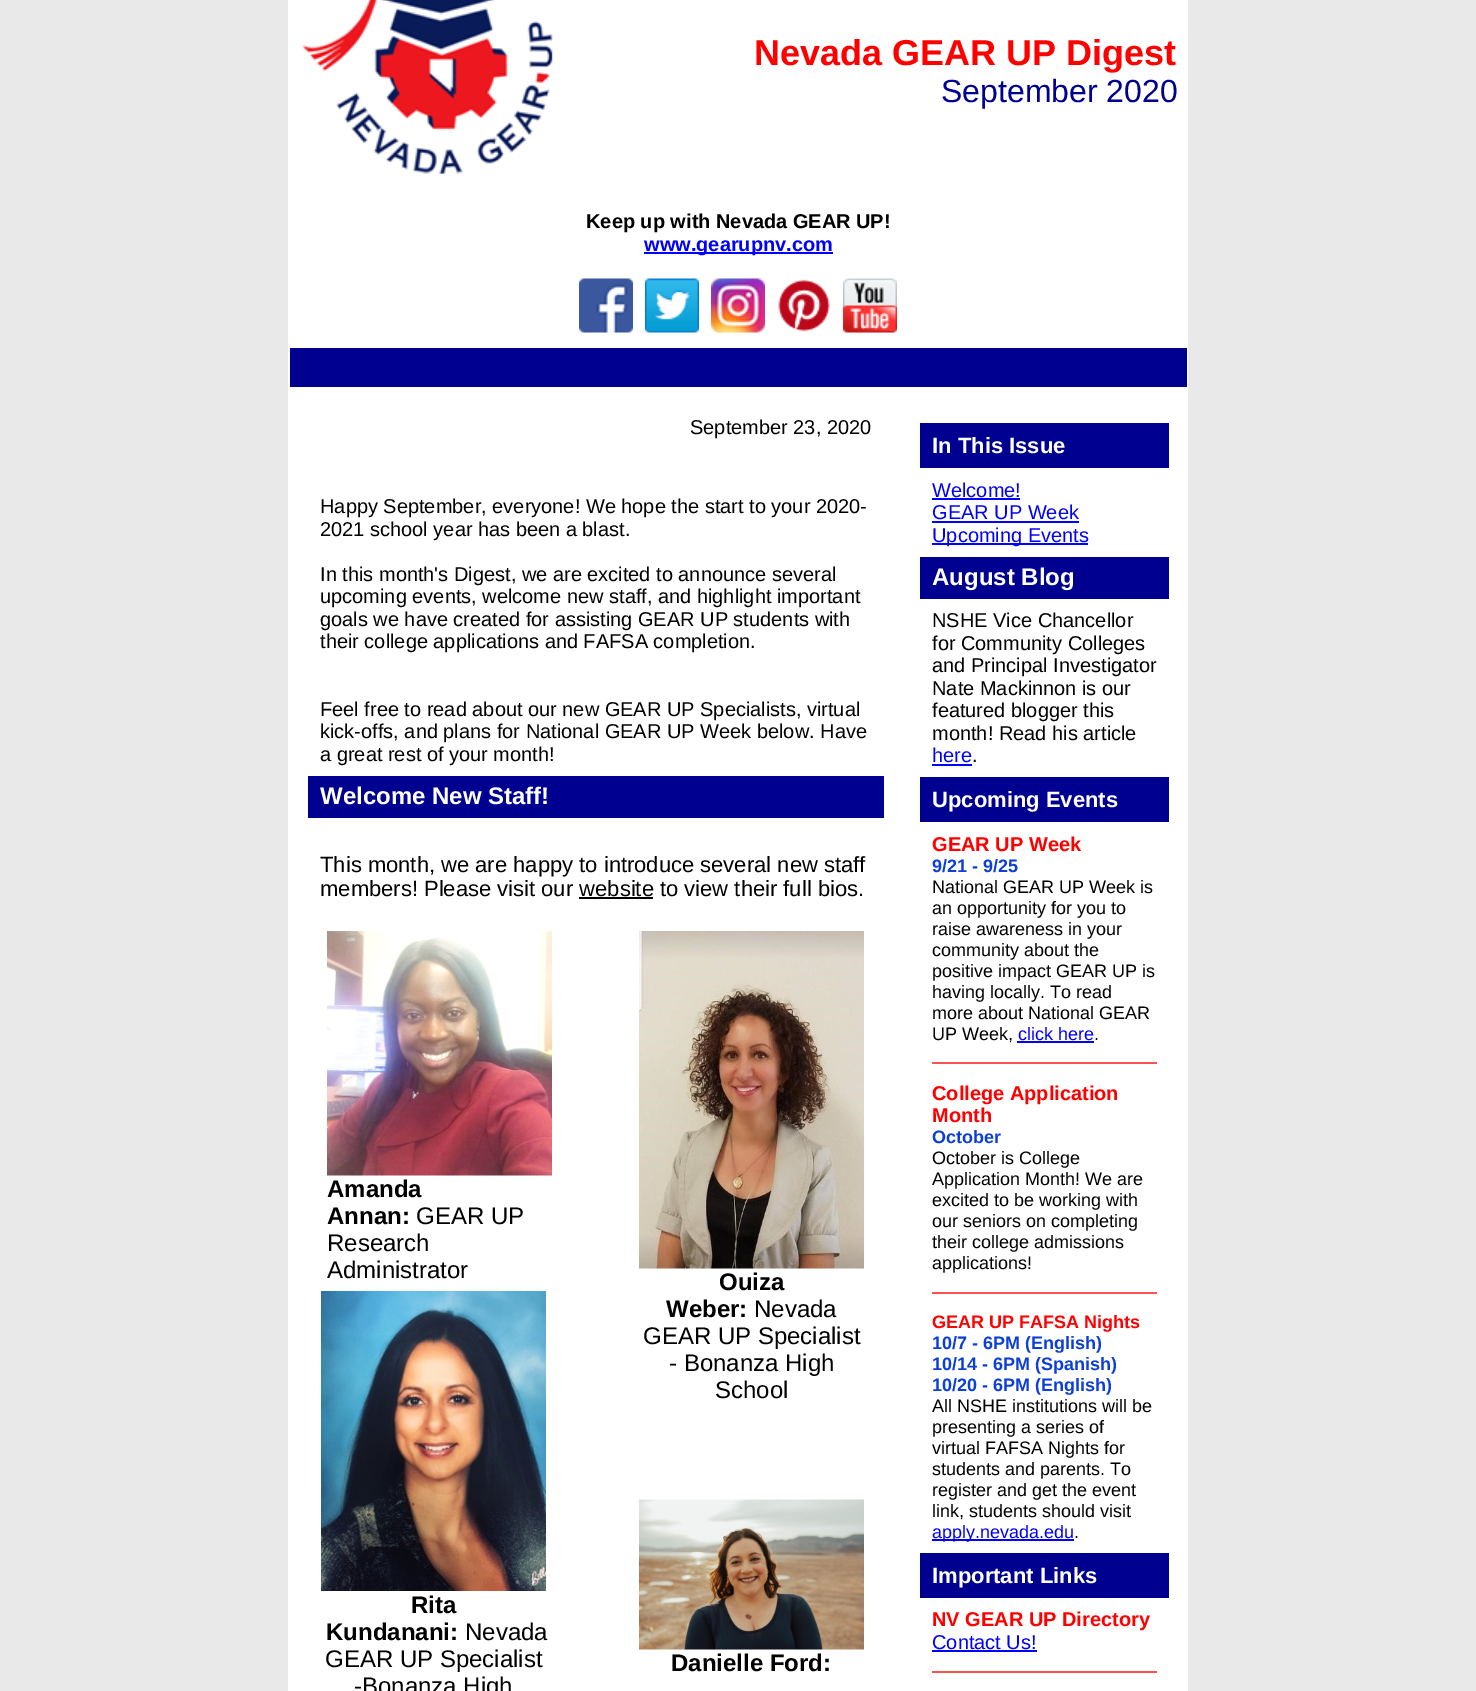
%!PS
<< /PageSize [1476 1691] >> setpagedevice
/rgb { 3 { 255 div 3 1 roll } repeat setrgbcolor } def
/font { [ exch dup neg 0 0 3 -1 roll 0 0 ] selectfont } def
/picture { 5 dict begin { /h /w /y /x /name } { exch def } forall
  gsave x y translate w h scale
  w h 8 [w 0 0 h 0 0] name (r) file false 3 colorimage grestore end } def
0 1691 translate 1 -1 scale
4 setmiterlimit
234 233 233 rgb
0 0 1476 1691 rectfill
255 255 255 rgb
288 0 900 1691 rectfill
(img/1.rgb) 302 0 251 174 picture
0 0 255 rgb
644 252 189 2 rectfill
(img/2.rgb) 579 278 54 55 picture
(img/3.rgb) 645 278 54 55 picture
(img/4.rgb) 711 278 54 55 picture
(img/5.rgb) 778 279 52 53 picture
(img/6.rgb) 843 278 54 55 picture
[
  [290 348 897 39 0 0 144]
  [308 776 576 42 0 0 144]
  [579 897 74 2 0 0 0]
] { aload pop rgb rectfill } forall
(img/7.rgb) 327 931 225 245 picture
(img/8.rgb) 639 931 225 338 picture
(img/9.rgb) 321 1291 225 300 picture
(img/10.rgb) 639 1499 225 151 picture
[
  [920 423 249 45 0 0 144]
  [932 498 88 2 0 0 255]
  [932 521 147 2 0 0 255]
  [932 543 156 2 0 0 255]
  [920 557 249 42 0 0 144]
  [932 764 40 2 0 0 255]
  [920 777 249 45 0 0 144]
  [1017 1041 77 2 0 0 255]
  [932 1062 225 2 252 83 81]
  [932 1292 225 2 252 83 81]
  [932 1539 142 2 0 0 255]
  [920 1553 249 45 0 0 144]
  [932 1650 105 2 0 0 255]
  [932 1671 225 2 252 83 81]
] { aload pop rgb rectfill } forall
/LiberationSans-Bold 36 font
255 0 0 rgb
754 65 moveto (Nevada GEAR UP Digest) show
/LiberationSans-Regular 32 font
0 0 144 rgb
941 102 moveto (September 2020) show
/LiberationSans-Bold 20 font
0 0 0 rgb
586 228 moveto (Keep up with Nevada GEAR UP!) show
0 0 255 rgb
644 251 moveto (www.gearupnv.com) show
/LiberationSans-Regular 20 font
0 0 0 rgb
[
  [(September 23, 2020) 690 434]
  [(Happy September, everyone! We hope the start to your 2020-) 320 513]
  [(2021 school year has been a blast.) 320 536]
  [(In this month's Digest, we are excited to announce several) 320 581]
  [(upcoming events, welcome new staff, and highlight important) 320 603]
  [(goals we have created for assisting GEAR UP students with) 320 626]
  [(their college applications and FAFSA completion.) 320 648]
  [(Feel free to read about our new GEAR UP Specialists, virtual) 320 716]
  [(kick-offs, and plans for National GEAR UP Week below. Have) 320 738]
  [(a great rest of your month!) 320 761]
] { aload pop moveto show } forall
/LiberationSans-Bold 24 font
255 255 255 rgb
320 804 moveto (Welcome New Staff!) show
/LiberationSans-Regular 22 font
0 0 0 rgb
320 872 moveto (This month, we are happy to introduce several new staff) show
320 896 moveto (members! Please visit our website to view their full bios.) show
/LiberationSans-Bold 24 font
327 1197 moveto (Amanda) show
327 1224 moveto (Annan:) show
/LiberationSans-Regular 24 font
[
  [(GEAR UP) 416 1224]
  [(Research) 327 1251]
  [(Administrator) 327 1278]
] { aload pop moveto show } forall
/LiberationSans-Bold 24 font
719 1290 moveto (Ouiza) show
666 1317 moveto (Weber:) show
/LiberationSans-Regular 24 font
[
  [(Nevada) 754 1317]
  [(GEAR UP Specialist) 643 1344]
  [(- Bonanza High) 669 1371]
  [(School) 715 1398]
] { aload pop moveto show } forall
/LiberationSans-Bold 24 font
411 1613 moveto (Rita) show
326 1640 moveto (Kundanani:) show
/LiberationSans-Regular 24 font
[
  [(Nevada) 465 1640]
  [(GEAR UP Specialist) 325 1667]
  [(-Bonanza High) 354 1694]
] { aload pop moveto show } forall
/LiberationSans-Bold 24 font
671 1671 moveto (Danielle Ford:) show
/LiberationSans-Bold 22 font
255 255 255 rgb
932 453 moveto (In This Issue) show
/LiberationSans-Regular 20 font
0 0 255 rgb
[
  [(Welcome!) 932 497]
  [(GEAR UP Week) 932 519]
  [(Upcoming Events) 932 542]
] { aload pop moveto show } forall
/LiberationSans-Bold 24 font
255 255 255 rgb
932 585 moveto (August Blog) show
/LiberationSans-Regular 20 font
0 0 0 rgb
[
  [(NSHE Vice Chancellor) 932 627]
  [(for Community Colleges) 932 650]
  [(and Principal Investigator) 932 672]
  [(Nate Mackinnon is our) 932 695]
  [(featured blogger this) 932 717]
  [(month! Read his article) 932 740]
] { aload pop moveto show } forall
0 0 255 rgb
932 762 moveto (here) show
0 0 0 rgb
972 762 moveto (.) show
/LiberationSans-Bold 22 font
255 255 255 rgb
932 807 moveto (Upcoming Events) show
/LiberationSans-Bold 20 font
255 0 0 rgb
932 851 moveto (GEAR UP Week) show
/LiberationSans-Bold 18 font
12 63 216 rgb
932 872 moveto (9/21 - 9/25) show
/LiberationSans-Regular 18 font
0 0 0 rgb
[
  [(National GEAR UP Week is) 932 893]
  [(an opportunity for you to) 932 914]
  [(raise awareness in your) 932 935]
  [(community about the) 932 956]
  [(positive impact GEAR UP is) 932 977]
  [(having locally. To read) 932 998]
  [(more about National GEAR) 932 1019]
  [(UP Week,) 932 1040]
] { aload pop moveto show } forall
0 0 255 rgb
1018 1040 moveto (click here) show
0 0 0 rgb
1094 1040 moveto (.) show
/LiberationSans-Bold 20 font
255 0 0 rgb
932 1100 moveto (College Application) show
932 1122 moveto (Month) show
/LiberationSans-Bold 18 font
12 63 216 rgb
932 1143 moveto (October) show
/LiberationSans-Regular 18 font
0 0 0 rgb
[
  [(October is College) 932 1164]
  [(Application Month! We are) 932 1185]
  [(excited to be working with) 932 1206]
  [(our seniors on completing) 932 1227]
  [(their college admissions) 932 1248]
  [(applications!) 932 1269]
] { aload pop moveto show } forall
/LiberationSans-Bold 18 font
255 0 0 rgb
932 1328 moveto (GEAR UP FAFSA Nights) show
12 63 216 rgb
[
  [(10/7 - 6PM \(English\)) 932 1349]
  [(10/14 - 6PM \(Spanish\)) 932 1370]
  [(10/20 - 6PM \(English\)) 932 1391]
] { aload pop moveto show } forall
/LiberationSans-Regular 18 font
0 0 0 rgb
[
  [(All NSHE institutions will be) 932 1412]
  [(presenting a series of) 932 1433]
  [(virtual FAFSA Nights for) 932 1454]
  [(students and parents. To) 932 1475]
  [(register and get the event) 932 1496]
  [(link, students should visit) 932 1517]
] { aload pop moveto show } forall
0 0 255 rgb
932 1538 moveto (apply.nevada.edu) show
0 0 0 rgb
1074 1538 moveto (.) show
/LiberationSans-Bold 22 font
255 255 255 rgb
932 1583 moveto (Important Links) show
/LiberationSans-Bold 20 font
255 0 0 rgb
932 1626 moveto (NV GEAR UP Directory) show
/LiberationSans-Regular 20 font
0 0 255 rgb
932 1649 moveto (Contact Us!) show
showpage
